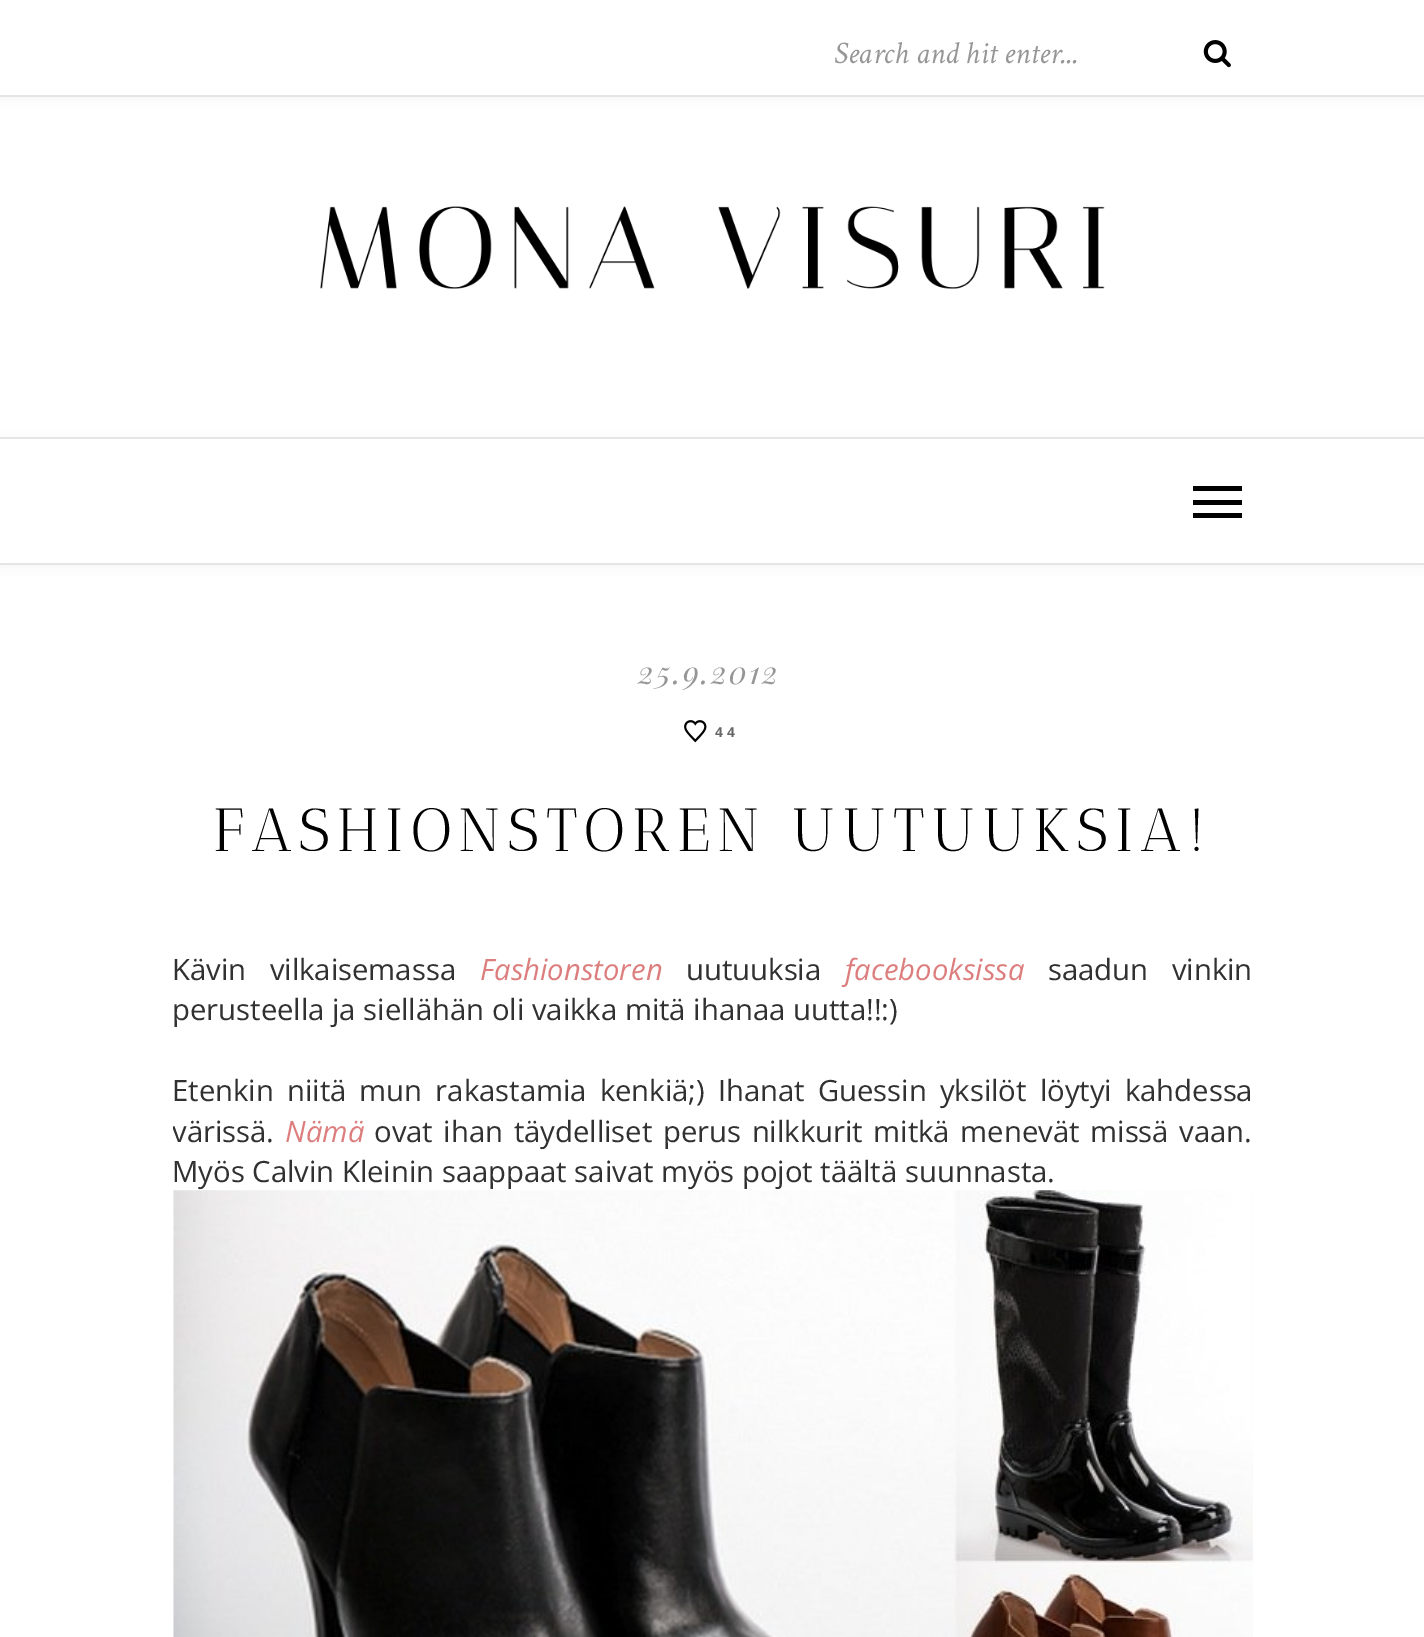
%!PS
<< /PageSize [1424 1637] /PageUsesTransparency true >> setpagedevice
/rgb { 3 { 255 div 3 1 roll } repeat setrgbcolor } def
/font { [ exch dup neg 0 0 3 -1 roll 0 0 ] selectfont } def
/alpha { dup .setfillconstantalpha .setstrokeconstantalpha } def
/roundrect { 5 dict begin { /r /h /w /y /x } { exch def } forall
  x r add y moveto x w add y 2 copy h add r arct x w add y h add x 1 index r arct
  x y h add x y r arct x y 2 copy exch w add exch r arct closepath end } def
/shadow { 12 dict begin { /a /b /q /h /w /y /x } { exch def } forall gsave /was 0 def
  9 -2 -9 { dup b mul 4 div /e exch def 1 sub .425 mul 2.718 exch exp 1 add a .99 .min exch div /now exch def
    1 1 now sub 1 was sub div sub alpha /was now def
    w h .min e 2 mul add 0 gt { x e sub y e sub w e 2 mul add h e 2 mul add
      q e add b .6 mul add w h .min 2 div e add .min 0 .max roundrect fill } if } for grestore end } def
/picture { 5 dict begin { /h /w /y /x /name } { exch def } forall
  gsave x y translate w h scale
  w h 8 [w 0 0 h 0 0] name (r) file false 3 colorimage grestore end } def
0 .pushpdf14devicefilter
0 1637 translate 1 -1 scale
4 setmiterlimit
255 255 255 rgb
0 0 1424 1637 rectfill
190 190 190 rgb
0 2 1424 97 0 5.5 0.16 shadow
255 255 255 rgb
0 0 1424 95 rectfill
229 229 229 rgb
0 95 1424 2 rectfill
(img/1.rgb) 1203 40 28 28 picture
(img/2.rgb) 320 206 785 83 picture
190 190 190 rgb
0 439 1424 128 0 5.5 0.16 shadow
[
  [0 439 1424 124 255 255 255]
  [0 437 1424 2 229 229 229]
  [0 563 1424 2 229 229 229]
  [1193 486 49 5 0 0 0]
  [1193 500 49 5 0 0 0]
  [1193 513 49 5 0 0 0]
] { aload pop rgb rectfill } forall
(img/3.rgb) 684 720 23 23 picture
(img/4.rgb) 173 1190 1080 447 picture
/CrimsonText-Italic 31.5 font
150 150 150 rgb
834 63 moveto (Search and hit enter...) show
/PlayfairDisplay-Italic 31.5 font
638 684 moveto 2.25 0 (25.9.2012) ashow
/LiberationSans-Bold 14 font
102 102 102 rgb
715 737 moveto 4 0 (44) ashow
/AnticDidone-Regular 60.75 font
0 0 0 rgb
213 851 moveto 6.75 0 (FASHIONSTOREN UUTUUKSIA!) ashow
/OpenSans-Regular 29.25 font
49 49 49 rgb
172 980 moveto 16 0 32 (Kävin vilkaisemassa) widthshow
/OpenSans-Italic 29.25 font
221 126 126 rgb
480 980 moveto (Fashionstoren) show
/OpenSans-Regular 29.25 font
49 49 49 rgb
686 980 moveto (uutuuksia) show
/OpenSans-Italic 29.25 font
221 126 126 rgb
845 980 moveto (facebooksissa) show
/OpenSans-Regular 29.25 font
49 49 49 rgb
1048 980 moveto 16 0 32 (saadun vinkin) widthshow
172 1020 moveto (perusteella ja siellähän oli vaikka mitä ihanaa uutta!!:\)) show
172 1101 moveto 5.5 0 32 (Etenkin niitä mun rakastamia kenkiä;\) Ihanat Guessin yksilöt löytyi kahdessa) widthshow
gsave
173 565 1080 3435 rectclip
172 1142 moveto (värissä.) show
grestore
/OpenSans-Italic 29.25 font
221 126 126 rgb
285 1142 moveto (Nämä) show
/OpenSans-Regular 29.25 font
49 49 49 rgb
374 1142 moveto 3 0 32 (ovat ihan täydelliset perus nilkkurit mitkä menevät missä vaan.) widthshow
172 1182 moveto (Myös Calvin Kleinin saappaat saivat myös pojot täältä suunnasta.) show
.poppdf14devicefilter showpage
